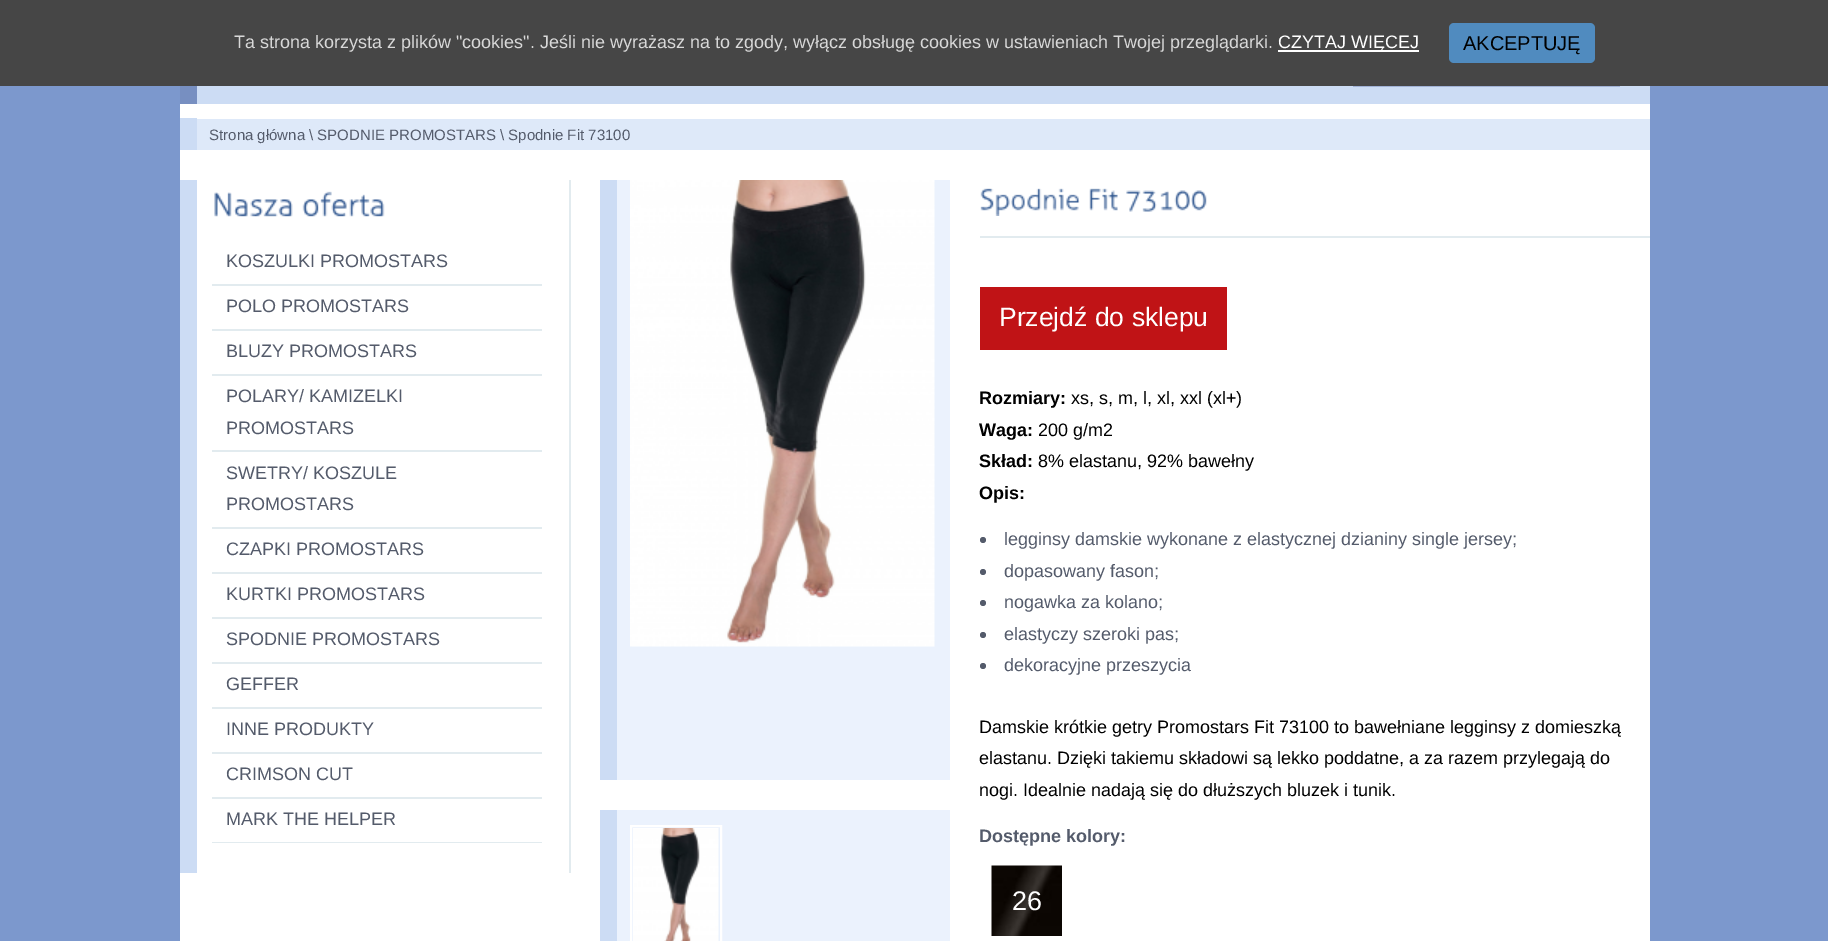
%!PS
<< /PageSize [1828 941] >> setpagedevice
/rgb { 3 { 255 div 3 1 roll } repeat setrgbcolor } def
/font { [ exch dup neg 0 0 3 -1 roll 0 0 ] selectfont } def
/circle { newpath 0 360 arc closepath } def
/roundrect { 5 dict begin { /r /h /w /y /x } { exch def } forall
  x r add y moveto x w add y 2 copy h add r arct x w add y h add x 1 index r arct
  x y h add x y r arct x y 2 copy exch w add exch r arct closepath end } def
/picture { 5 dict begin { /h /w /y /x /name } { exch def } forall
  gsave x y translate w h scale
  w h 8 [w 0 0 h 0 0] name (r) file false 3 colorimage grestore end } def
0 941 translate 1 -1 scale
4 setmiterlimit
124 152 205 rgb
0 0 1828 941 rectfill
70 70 70 rgb
0 0 1828 86 rectfill
255 255 255 rgb
1278 50 141 2 rectfill
80 139 191 rgb
1449 23 146 40 5 roundrect fill
[
  [180 104 1470 837 255 255 255]
  [197 86 1453 18 204 220 244]
  [180 86 17 18 119 143 193]
] { aload pop rgb rectfill } forall
(img/1.rgb) 1353 86 267 1 picture
[
  [197 119 1453 31 222 233 249]
  [180 118 17 32 204 220 244]
  [180 180 17 693 204 220 244]
  [569 180 2 693 226 235 239]
] { aload pop rgb rectfill } forall
(img/2.rgb) 214 192 79 25 picture
(img/3.rgb) 302 191 83 26 picture
[
  [212 284 330 2 226 235 239]
  [212 329 330 2 226 235 239]
  [212 374 330 2 226 235 239]
  [212 450 330 2 226 235 239]
  [212 527 330 2 226 235 239]
  [212 572 330 2 226 235 239]
  [212 617 330 2 226 235 239]
  [212 662 330 2 226 235 239]
  [212 707 330 2 226 235 239]
  [212 752 330 2 226 235 239]
  [212 797 330 2 226 235 239]
  [212 842 330 1 226 235 239]
  [617 180 333 600 235 242 253]
  [600 180 17 600 204 220 244]
] { aload pop rgb rectfill } forall
(img/4.rgb) 630 180 305 467 picture
235 242 253 rgb
617 810 333 131 rectfill
204 220 244 rgb
600 810 17 131 rectfill
255 255 255 rgb
2 setlinewidth
631 826 90 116 rectstroke
(img/5.rgb) 633 828 86 113 picture
(img/6.rgb) 980 188 100 28 picture
(img/7.rgb) 1089 188 29 23 picture
(img/8.rgb) 1126 190 81 22 picture
226 235 239 rgb
980 236 670 2 rectfill
192 19 22 rgb
980 287 247 63 rectfill
84 91 107 rgb
983 540 3 circle fill
983 572 3 circle fill
983 603 3 circle fill
983 635 3 circle fill
983 666 3 circle fill
(img/9.rgb) 991 865 71 71 picture
/LiberationSans-Regular 18 font
216 216 216 rgb
234 48 moveto (Ta strona korzysta z plików "cookies". Jeśli nie wyrażasz na to zgody, wyłącz obsługę cookies w ustawieniach Twojej przeglądarki.) show
255 255 255 rgb
1278 48 moveto (CZYTAJ WIĘCEJ) show
/LiberationSans-Regular 20 font
0 0 0 rgb
1463 50 moveto (AKCEPTUJĘ) show
/LiberationSans-Regular 15 font
84 91 107 rgb
209 140 moveto (Strona główna \\ SPODNIE PROMOSTARS \\ Spodnie Fit 73100) show
/LiberationSans-Regular 18 font
[
  [(KOSZULKI PROMOSTARS) 226 267]
  [(POLO PROMOSTARS) 226 312]
  [(BLUZY PROMOSTARS) 226 357]
  [(POLARY/ KAMIZELKI) 226 402]
  [(PROMOSTARS) 226 434]
  [(SWETRY/ KOSZULE) 226 479]
  [(PROMOSTARS) 226 510]
  [(CZAPKI PROMOSTARS) 226 555]
  [(KURTKI PROMOSTARS) 226 600]
  [(SPODNIE PROMOSTARS) 226 645]
  [(GEFFER) 226 690]
  [(INNE PRODUKTY) 226 735]
  [(CRIMSON CUT) 226 780]
  [(MARK THE HELPER) 226 825]
] { aload pop moveto show } forall
/LiberationSans-Regular 26.5 font
255 255 255 rgb
999 326 moveto (Przejdź do sklepu) show
/LiberationSans-Bold 18 font
0 0 0 rgb
979 404 moveto (Rozmiary:) show
/LiberationSans-Regular 18 font
1071 404 moveto (xs, s, m, l, xl, xxl \(xl+\)) show
/LiberationSans-Bold 18 font
979 436 moveto (Waga:) show
/LiberationSans-Regular 18 font
1038 436 moveto (200 g/m2) show
/LiberationSans-Bold 18 font
979 467 moveto (Skład:) show
/LiberationSans-Regular 18 font
1038 467 moveto (8% elastanu, 92% bawełny) show
/LiberationSans-Bold 18 font
979 499 moveto (Opis:) show
/LiberationSans-Regular 18 font
84 91 107 rgb
[
  [(legginsy damskie wykonane z elastycznej dzianiny single jersey;) 1004 545]
  [(dopasowany fason;) 1004 577]
  [(nogawka za kolano;) 1004 608]
  [(elastyczy szeroki pas;) 1004 640]
  [(dekoracyjne przeszycia) 1004 671]
] { aload pop moveto show } forall
0 0 0 rgb
[
  [(Damskie krótkie getry Promostars Fit 73100 to bawełniane legginsy z domieszką) 979 733]
  [(elastanu. Dzięki takiemu składowi są lekko poddatne, a za razem przylegają do) 979 764]
  [(nogi. Idealnie nadają się do dłuższych bluzek i tunik.) 979 796]
] { aload pop moveto show } forall
/LiberationSans-Bold 18 font
84 91 107 rgb
979 842 moveto (Dostępne kolory:) show
/LiberationSans-Regular 27 font
255 255 255 rgb
1012 910 moveto (26) show
showpage
